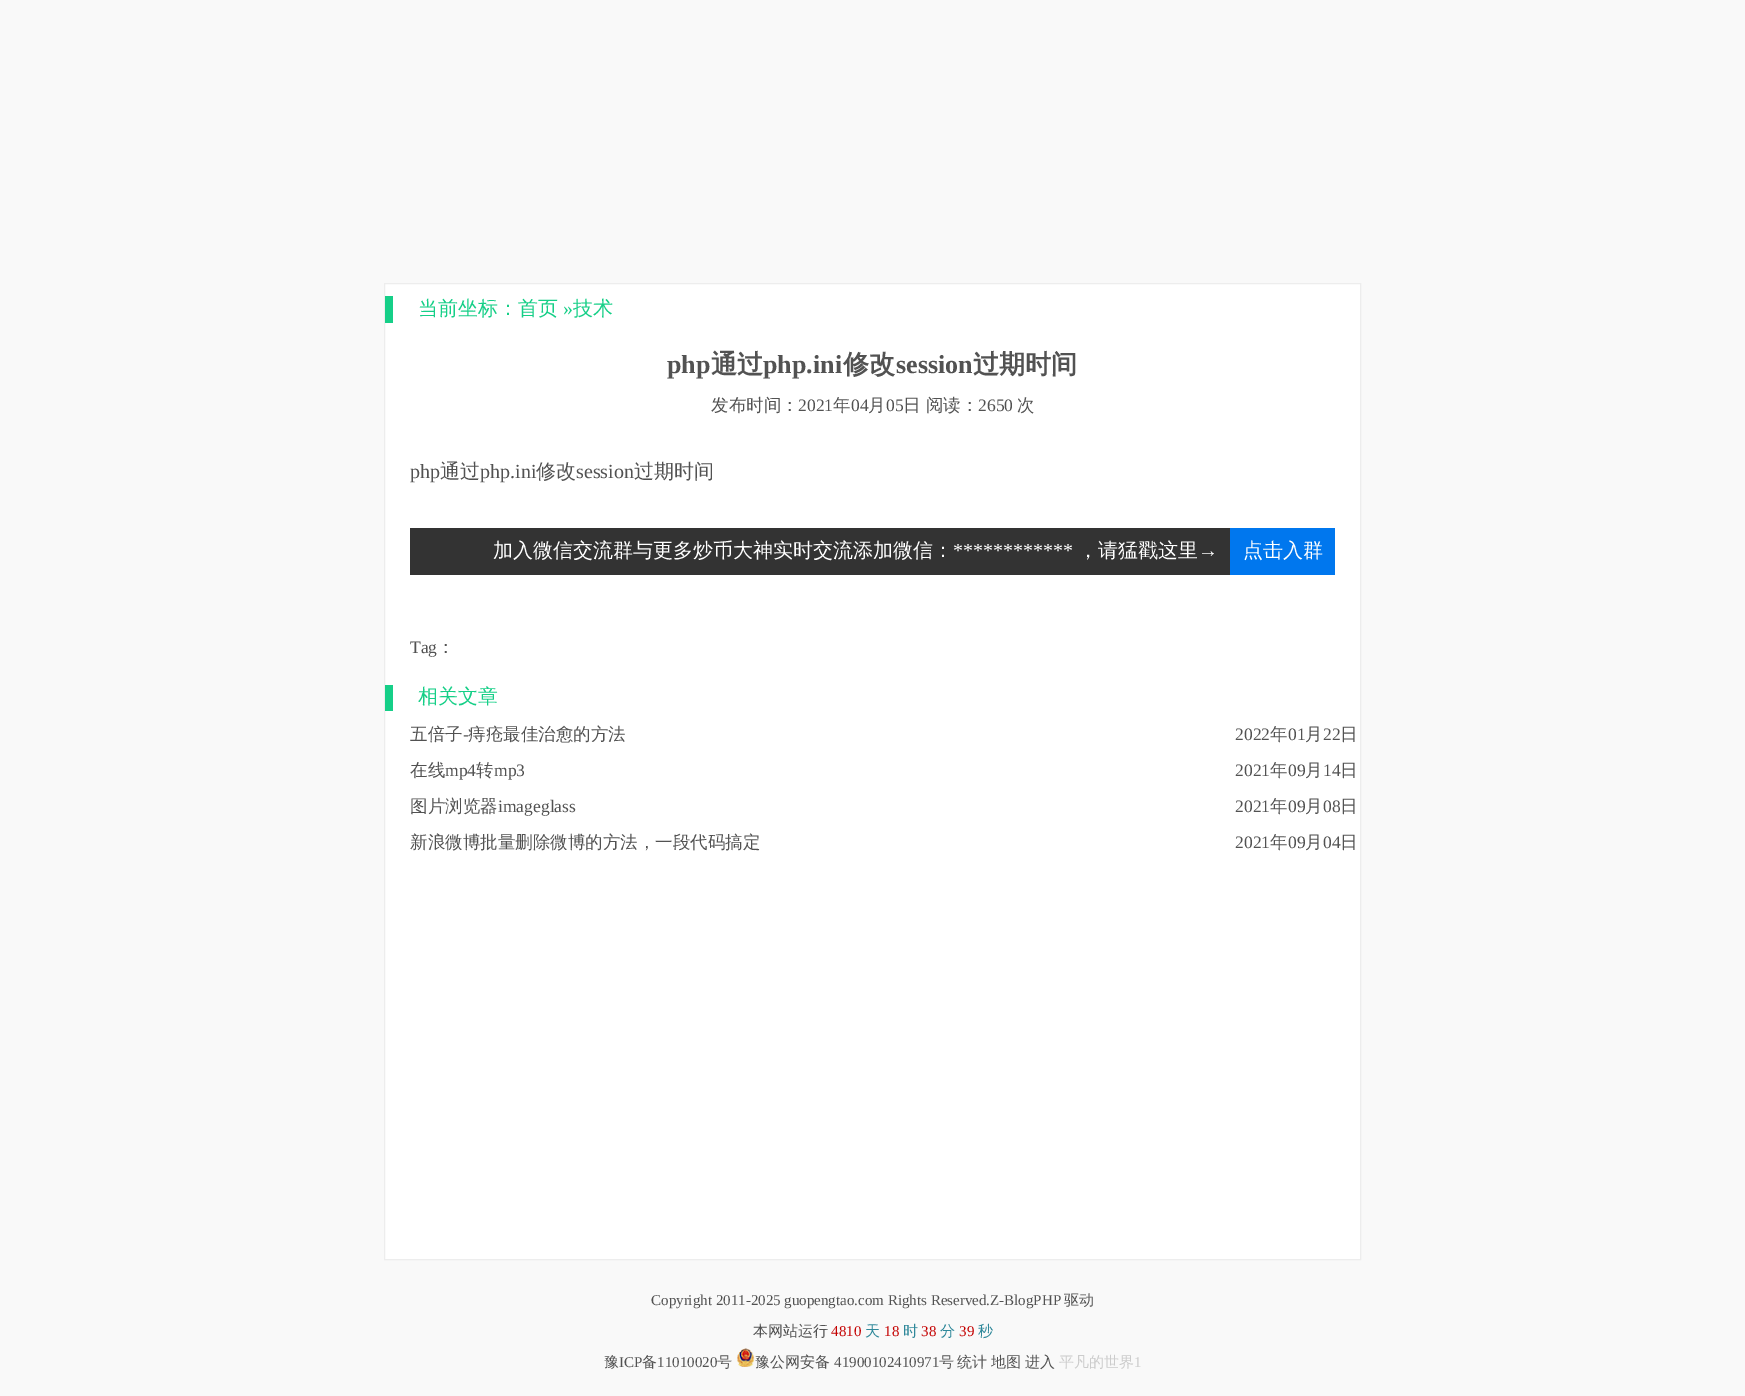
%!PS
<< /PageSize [1745 1396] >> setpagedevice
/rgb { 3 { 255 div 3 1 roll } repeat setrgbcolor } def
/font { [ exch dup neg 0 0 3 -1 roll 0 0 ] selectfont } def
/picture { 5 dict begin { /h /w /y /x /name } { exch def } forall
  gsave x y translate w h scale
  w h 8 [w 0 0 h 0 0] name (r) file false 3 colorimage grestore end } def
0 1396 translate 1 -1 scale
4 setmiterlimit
249 249 249 rgb
0 0 1745 1396 rectfill
255 255 255 rgb
384.5 283.5 moveto 1360.5 283.5 lineto 1360.5 1259.5 lineto 384.5 1259.5 lineto closepath gsave fill grestore
237 237 237 rgb
stroke
[
  [385 296 8 27 22 207 136]
  [410 528 820 47 51 51 51]
  [1230 528 105 47 0 119 238]
  [385 685 8 26 22 207 136]
] { aload pop rgb rectfill } forall
(img/1.rgb) 737 1348 18 19 picture
/WenQuanYiZenHei-Medium 20 font
21 207 135 rgb
418 315 moveto (当前坐标：首页) show
/LiberationSerif-Regular 20 font
563 315 moveto (») show
/WenQuanYiZenHei-Medium 20 font
573 315 moveto (技术) show
/LiberationSerif-Bold 26 font
82 82 82 rgb
667 373 moveto (php) show
/WenQuanYiZenHei-Bold 26 font
711 373 moveto (通过) show
/LiberationSerif-Bold 26 font
763 373 moveto (php.ini) show
/WenQuanYiZenHei-Bold 26 font
843 373 moveto (修改) show
/LiberationSerif-Bold 26 font
896 373 moveto (session) show
/WenQuanYiZenHei-Bold 26 font
973 373 moveto (过期时间) show
/WenQuanYiZenHei-Medium 17.5 font
711 411 moveto (发布时间：) show
/LiberationSerif-Regular 17.5 font
798 411 moveto (2021) show
/WenQuanYiZenHei-Medium 17.5 font
833 411 moveto (年) show
/LiberationSerif-Regular 17.5 font
851 411 moveto (04) show
/WenQuanYiZenHei-Medium 17.5 font
868 411 moveto (月) show
/LiberationSerif-Regular 17.5 font
886 411 moveto (05) show
/WenQuanYiZenHei-Medium 17.5 font
903 411 moveto (日 阅读：) show
/LiberationSerif-Regular 17.5 font
978 411 moveto (2650) show
/WenQuanYiZenHei-Medium 17.5 font
1017 411 moveto (次) show
/LiberationSerif-Regular 20 font
410 478 moveto (php) show
/WenQuanYiZenHei-Medium 20 font
440 478 moveto (通过) show
/LiberationSerif-Regular 20 font
480 478 moveto (php.ini) show
/WenQuanYiZenHei-Medium 20 font
536 478 moveto (修改) show
/LiberationSerif-Regular 20 font
576 478 moveto (session) show
/WenQuanYiZenHei-Medium 20 font
634 478 moveto (过期时间) show
255 255 255 rgb
493 557 moveto (加入微信交流群与更多炒币大神实时交流添加微信：) show
/LiberationSerif-Regular 20 font
953 557 moveto (************) show
/WenQuanYiZenHei-Medium 20 font
1078 557 moveto (，请猛戳这里) show
1243 557 moveto (点击入群) show
/LiberationSerif-Regular 20 font
1198 557 moveto (→) show
/LiberationSerif-Regular 17.5 font
82 82 82 rgb
410 653 moveto (Tag) show
/WenQuanYiZenHei-Medium 17.5 font
437 653 moveto (：) show
/WenQuanYiZenHei-Medium 20 font
21 207 135 rgb
418 703 moveto (相关文章) show
/WenQuanYiZenHei-Medium 17.5 font
82 82 82 rgb
410 740 moveto (五倍子) show
/LiberationSerif-Regular 17.5 font
463 740 moveto (-) show
/WenQuanYiZenHei-Medium 17.5 font
468 740 moveto (痔疮最佳治愈的方法) show
/LiberationSerif-Regular 17.5 font
1235 740 moveto (2022) show
/WenQuanYiZenHei-Medium 17.5 font
1270 740 moveto (年) show
/LiberationSerif-Regular 17.5 font
1288 740 moveto (01) show
/WenQuanYiZenHei-Medium 17.5 font
1305 740 moveto (月) show
/LiberationSerif-Regular 17.5 font
1323 740 moveto (22) show
/WenQuanYiZenHei-Medium 17.5 font
1340 740 moveto (日) show
410 776 moveto (在线) show
/LiberationSerif-Regular 17.5 font
445 776 moveto (mp4) show
/WenQuanYiZenHei-Medium 17.5 font
476 776 moveto (转) show
/LiberationSerif-Regular 17.5 font
494 776 moveto (mp3) show
1235 776 moveto (2021) show
/WenQuanYiZenHei-Medium 17.5 font
1270 776 moveto (年) show
/LiberationSerif-Regular 17.5 font
1288 776 moveto (09) show
/WenQuanYiZenHei-Medium 17.5 font
1305 776 moveto (月) show
/LiberationSerif-Regular 17.5 font
1323 776 moveto (14) show
/WenQuanYiZenHei-Medium 17.5 font
1340 776 moveto (日) show
410 812 moveto (图片浏览器) show
/LiberationSerif-Regular 17.5 font
498 812 moveto (imageglass) show
1235 812 moveto (2021) show
/WenQuanYiZenHei-Medium 17.5 font
1270 812 moveto (年) show
/LiberationSerif-Regular 17.5 font
1288 812 moveto (09) show
/WenQuanYiZenHei-Medium 17.5 font
1305 812 moveto (月) show
/LiberationSerif-Regular 17.5 font
1323 812 moveto (08) show
/WenQuanYiZenHei-Medium 17.5 font
1340 812 moveto (日) show
410 848 moveto (新浪微博批量删除微博的方法，一段代码搞定) show
/LiberationSerif-Regular 17.5 font
1235 848 moveto (2021) show
/WenQuanYiZenHei-Medium 17.5 font
1270 848 moveto (年) show
/LiberationSerif-Regular 17.5 font
1288 848 moveto (09) show
/WenQuanYiZenHei-Medium 17.5 font
1305 848 moveto (月) show
/LiberationSerif-Regular 17.5 font
1323 848 moveto (04) show
/WenQuanYiZenHei-Medium 17.5 font
1340 848 moveto (日) show
/LiberationSerif-Regular 15 font
651 1305 moveto (Copyright 2011-2025 guopengtao.com Rights Reserved.Z-BlogPHP) show
/WenQuanYiZenHei-Medium 15 font
1064 1305 moveto (驱动) show
753 1336 moveto (本网站运行) show
/LiberationSerif-Regular 15 font
196 0 0 rgb
831 1336 moveto (4810) show
/WenQuanYiZenHei-Medium 15 font
47 136 154 rgb
865 1336 moveto (天) show
/LiberationSerif-Regular 15 font
196 0 0 rgb
884 1336 moveto (18) show
/WenQuanYiZenHei-Medium 15 font
47 136 154 rgb
903 1336 moveto (时) show
/LiberationSerif-Regular 15 font
196 0 0 rgb
921 1336 moveto (38) show
/WenQuanYiZenHei-Medium 15 font
47 136 154 rgb
940 1336 moveto (分) show
/LiberationSerif-Regular 15 font
196 0 0 rgb
959 1336 moveto (39) show
/WenQuanYiZenHei-Medium 15 font
47 136 154 rgb
978 1336 moveto (秒) show
82 82 82 rgb
604 1367 moveto (豫) show
/LiberationSerif-Regular 15 font
619 1367 moveto (ICP) show
/WenQuanYiZenHei-Medium 15 font
642 1367 moveto (备) show
/LiberationSerif-Regular 15 font
657 1367 moveto (11010020) show
/WenQuanYiZenHei-Medium 15 font
717 1367 moveto (号) show
755 1367 moveto (豫公网安备) show
/LiberationSerif-Regular 15 font
834 1367 moveto (41900102410971) show
/WenQuanYiZenHei-Medium 15 font
[
  [(号) 939 1367]
  [(统计) 957 1367]
  [(地图) 991 1367]
  [(进入) 1025 1367]
] { aload pop moveto show } forall
204 204 204 rgb
1059 1367 moveto (平凡的世界) show
/LiberationSerif-Regular 15 font
1134 1367 moveto (1) show
showpage
